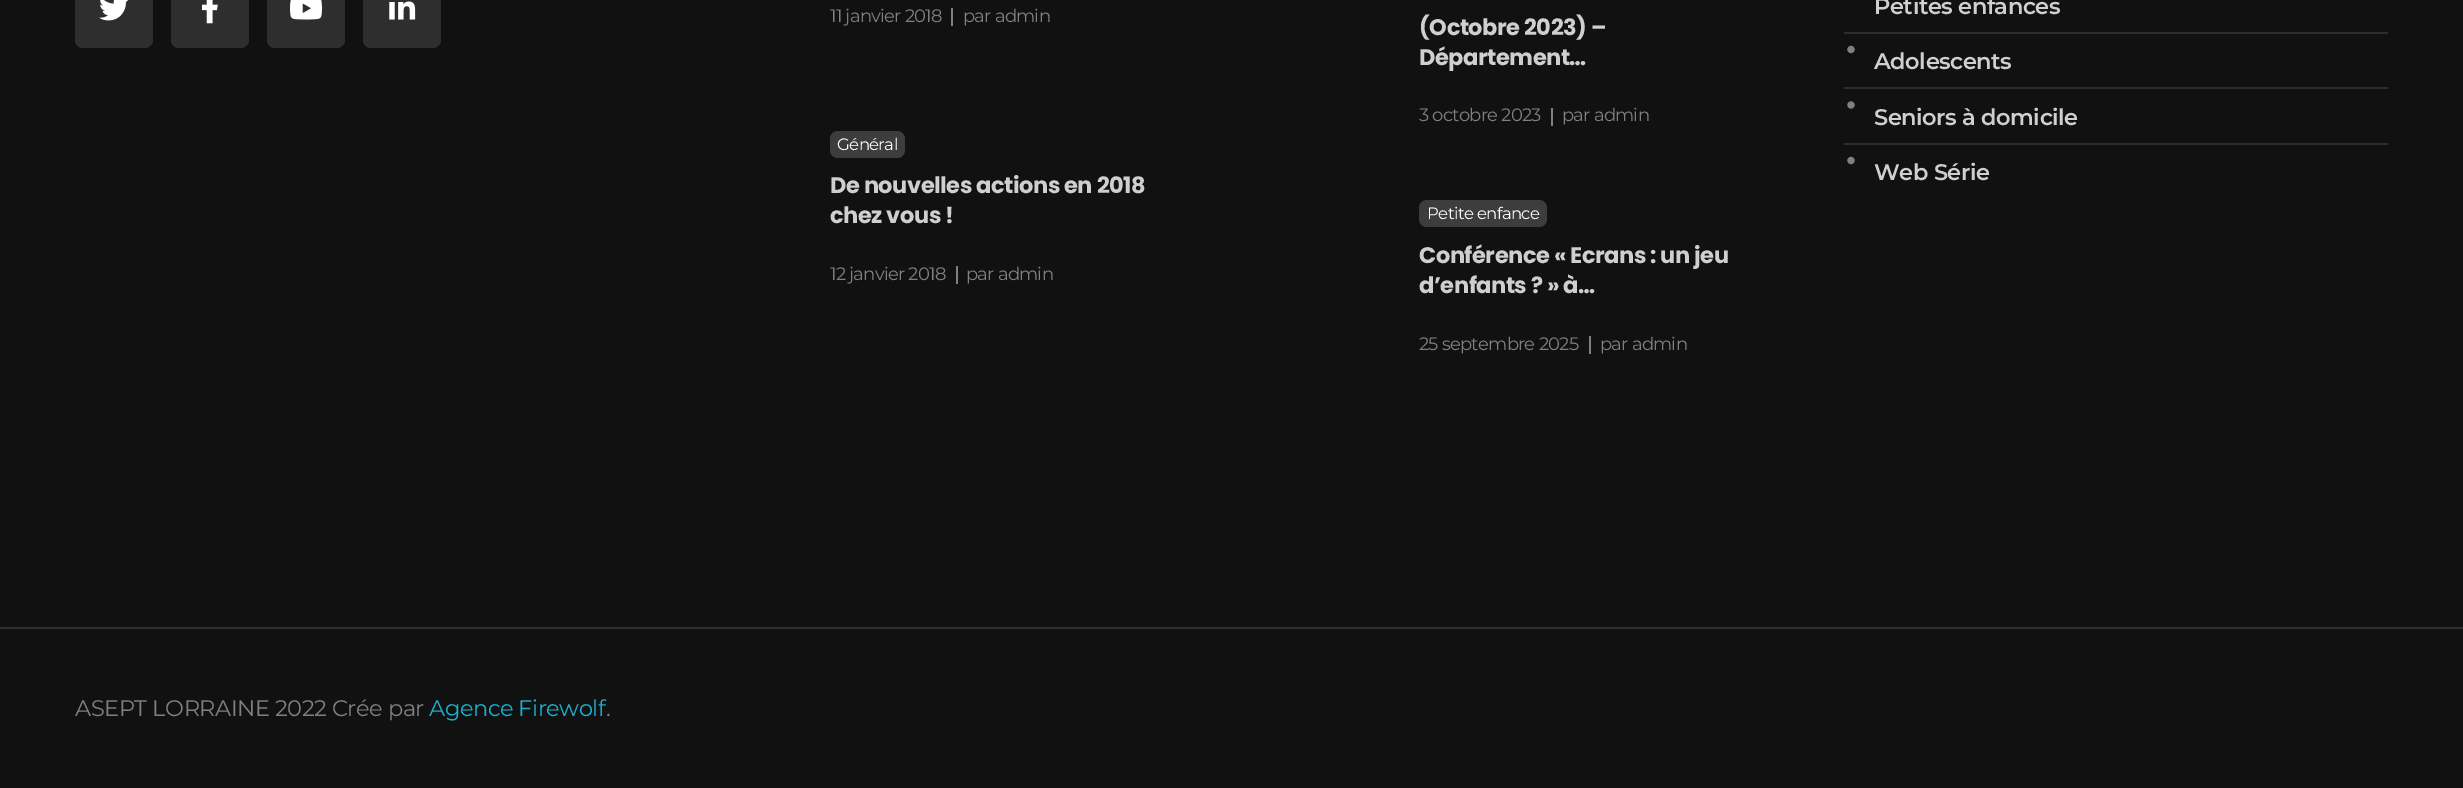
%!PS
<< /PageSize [2463 788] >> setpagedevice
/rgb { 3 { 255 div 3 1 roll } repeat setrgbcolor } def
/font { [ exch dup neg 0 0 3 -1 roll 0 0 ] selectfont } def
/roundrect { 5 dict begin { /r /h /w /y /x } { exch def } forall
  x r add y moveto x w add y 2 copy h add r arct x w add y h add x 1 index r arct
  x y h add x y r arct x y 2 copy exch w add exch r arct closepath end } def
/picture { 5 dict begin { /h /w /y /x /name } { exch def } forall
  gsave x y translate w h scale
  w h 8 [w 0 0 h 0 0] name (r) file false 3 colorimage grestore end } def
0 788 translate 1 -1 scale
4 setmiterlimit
17 17 17 rgb
0 0 2463 788 rectfill
46 46 46 rgb
75 -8 78 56 8 roundrect fill
(img/1.rgb) 99 0 29 21 picture
171 -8 78 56 8 roundrect fill
(img/2.rgb) 201 0 17 24 picture
267 -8 78 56 8 roundrect fill
(img/3.rgb) 290 0 32 20 picture
363 -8 78 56 8 roundrect fill
(img/4.rgb) 389 1 27 19 picture
128 128 128 rgb
951 8 2 18 rectfill
61 61 61 rgb
830 131 75 27 8 roundrect fill
128 128 128 rgb
956 266 2 18 rectfill
1551 108 2 18 rectfill
61 61 61 rgb
1419 200 128 27 8 roundrect fill
128 128 128 rgb
1589 336 2 18 rectfill
46 46 46 rgb
1844 32 544 2 rectfill
(img/5.rgb) 1847 45 8 9 picture
1844 87 544 2 rectfill
(img/6.rgb) 1847 101 8 8 picture
1844 143 544 2 rectfill
(img/5.rgb) 1847 156 8 9 picture
0 627 2463 2 rectfill
/Montserrat-Regular 18 font
128 128 128 rgb
830 22 moveto -0.75 0 (11 janvier 2018) ashow
963 22 moveto -0.75 0 (par admin) ashow
/Montserrat-Regular 16.5 font
255 255 255 rgb
837 150 moveto -0.6 0 (Général) ashow
/Poppins-Bold 22.5 font
207 207 207 rgb
830 193 moveto -0.45 0 (De nouvelles actions en 2018) ashow
830 223 moveto -0.45 0 (chez vous !) ashow
/Montserrat-Regular 18 font
128 128 128 rgb
830 280 moveto -0.75 0 (12 janvier 2018) ashow
966 280 moveto -0.75 0 (par admin) ashow
/Poppins-Bold 22.5 font
207 207 207 rgb
1419 35 moveto -0.45 0 (\(Octobre 2023\) –) ashow
1419 65 moveto -0.45 0 (Département…) ashow
/Montserrat-Regular 18 font
128 128 128 rgb
1419 121 moveto -0.75 0 (3 octobre 2023) ashow
1562 121 moveto -0.75 0 (par admin) ashow
/Montserrat-Regular 16.5 font
255 255 255 rgb
1427 219 moveto -0.6 0 (Petite enfance) ashow
/Poppins-Bold 22.5 font
207 207 207 rgb
1419 263 moveto -0.45 0 (Conférence « Ecrans : un jeu) ashow
1419 293 moveto -0.45 0 (d’enfants ? » à…) ashow
/Montserrat-Regular 18 font
128 128 128 rgb
1419 350 moveto -0.75 0 (25 septembre 2025) ashow
1600 350 moveto -0.75 0 (par admin) ashow
/Montserrat-SemiBold 22.5 font
207 207 207 rgb
1874 14 moveto -0.45 0 (Petites enfances) ashow
1874 69 moveto -0.45 0 (Adolescents) ashow
1874 125 moveto -0.45 0 (Seniors à domicile) ashow
1874 180 moveto -0.45 0 (Web Série) ashow
/Montserrat-Regular 22.5 font
128 128 128 rgb
75 716 moveto -0.45 0 (ASEPT LORRAINE 2022 Crée par) ashow
27 176 206 rgb
429 716 moveto -0.45 0 (Agence Firewolf) ashow
128 128 128 rgb
606 716 moveto -0.45 0 (.) ashow
showpage
